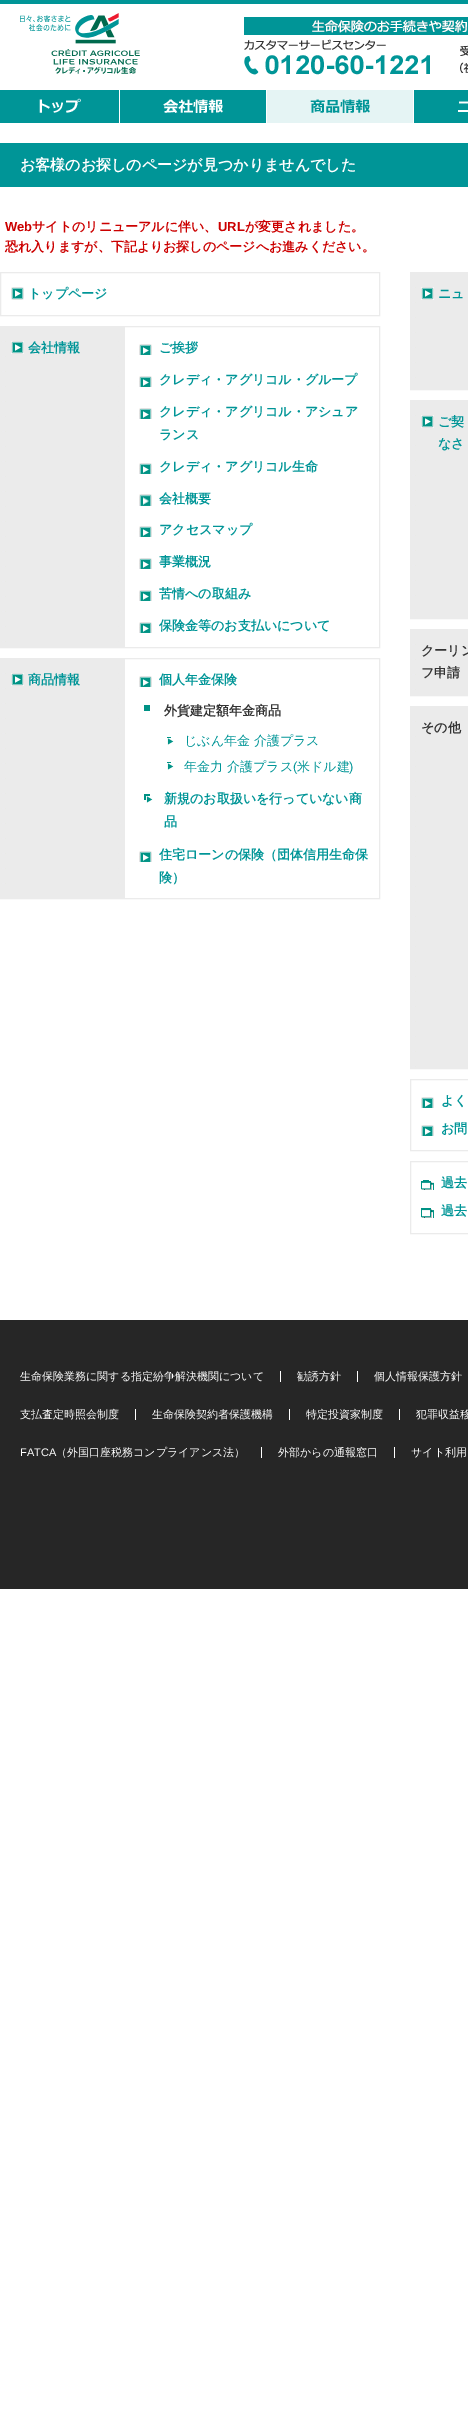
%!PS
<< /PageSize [468 2428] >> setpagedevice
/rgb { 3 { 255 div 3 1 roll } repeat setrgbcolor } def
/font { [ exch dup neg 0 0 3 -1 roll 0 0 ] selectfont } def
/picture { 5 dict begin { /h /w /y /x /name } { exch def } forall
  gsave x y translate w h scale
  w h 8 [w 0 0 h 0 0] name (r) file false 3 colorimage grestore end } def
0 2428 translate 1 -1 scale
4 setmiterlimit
255 255 255 rgb
0 0 468 2428 rectfill
0 149 151 rgb
0 0 468 4 rectfill
(img/1.rgb) 20 13 120 61 picture
(img/2.rgb) 244 17 224 58 picture
(img/3.rgb) 0 90 119 33 picture
(img/4.rgb) 120 90 146 33 picture
(img/5.rgb) 267 90 146 33 picture
(img/6.rgb) 414 90 54 33 picture
0 143 468 44 rectfill
235 235 235 rgb
0.5 272.5 379 43 rectstroke
(img/7.rgb) 11 287 13 13 picture
(img/8.rgb) 1 327 124 320 picture
0.5 326.5 379 321 rectstroke
(img/7.rgb) 11 341 13 13 picture
(img/9.rgb) 139 344 13 11 picture
(img/9.rgb) 139 376 13 11 picture
(img/9.rgb) 139 408 13 11 picture
(img/9.rgb) 139 463 13 11 picture
(img/10.rgb) 139 494 13 12 picture
(img/9.rgb) 139 526 13 11 picture
(img/9.rgb) 139 558 13 11 picture
(img/9.rgb) 139 590 13 11 picture
(img/9.rgb) 139 622 13 11 picture
(img/11.rgb) 1 659 124 239 picture
0.5 658.5 379 240 rectstroke
(img/7.rgb) 11 673 13 13 picture
(img/9.rgb) 139 676 13 11 picture
0 146 133 rgb
144 705 6 6 rectfill
0 146 132 rgb
167 737 4 1 rectfill
(img/12.rgb) 167 738 7 7 picture
167 762 4 1 rectfill
(img/12.rgb) 167 763 7 7 picture
0 146 133 rgb
144 794 6 6 rectfill
(img/12.rgb) 146 796 7 7 picture
(img/9.rgb) 139 851 13 11 picture
(img/13.rgb) 411 273 57 116 picture
235 235 235 rgb
410.5 272.5 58 117 rectstroke
(img/7.rgb) 421 287 13 13 picture
(img/14.rgb) 411 401 57 217 picture
410.5 400.5 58 218 rectstroke
(img/7.rgb) 421 415 13 13 picture
(img/15.rgb) 411 630 57 65 picture
410.5 629.5 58 66 rectstroke
(img/16.rgb) 411 707 57 361 picture
410.5 706.5 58 362 rectstroke
410.5 1079.5 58 71 rectstroke
(img/9.rgb) 421 1097 13 11 picture
(img/9.rgb) 421 1125 13 11 picture
410.5 1161.5 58 72 rectstroke
0 146 133 rgb
423 1180 6 1 rectfill
(img/17.rgb) 421 1181 13 9 picture
(img/18.rgb) 421 1208 13 10 picture
[
  [0 1320 468 269 38 38 38]
  [280 1371 1 11 255 255 255]
  [357 1371 1 11 255 255 255]
  [135 1409 1 11 255 255 255]
  [289 1409 1 11 255 255 255]
  [399 1409 1 11 255 255 255]
  [261 1447 1 11 255 255 255]
  [394 1447 1 11 255 255 255]
] { aload pop rgb rectfill } forall
/WenQuanYiZenHei-Bold 15 font
20 170 moveto (お客様のお探しのページが見つかりませんでした) show
/LiberationSans-Bold 13 font
204 0 0 rgb
5 231 moveto (Web) show
/WenQuanYiZenHei-Bold 13 font
32 231 moveto (サイトのリニューアルに伴い、) show
/LiberationSans-Bold 13 font
218 231 moveto (URL) show
/WenQuanYiZenHei-Bold 13 font
245 231 moveto (が変更されました。) show
5 251 moveto (恐れ入りますが、下記よりお探しのページへお進みください。) show
0 149 151 rgb
[
  [(トップページ) 28 298]
  [(会社情報) 28 352]
  [(ご挨拶) 159 352]
  [(クレディ・アグリコル・グループ) 159 384]
  [(クレディ・アグリコル・アシュア) 159 416]
  [(ランス) 159 439]
  [(クレディ・アグリコル生命) 159 471]
  [(会社概要) 159 503]
  [(アクセスマップ) 159 534]
  [(事業概況) 159 566]
  [(苦情への取組み) 159 598]
  [(保険金等のお支払いについて) 159 630]
  [(商品情報) 28 684]
  [(個人年金保険) 159 684]
] { aload pop moveto show } forall
51 51 51 rgb
164 715 moveto (外貨建定額年金商品) show
/WenQuanYiZenHei-Medium 13 font
0 149 151 rgb
184 745 moveto (じぶん年金 介護プラス) show
184 771 moveto (年金力 介護プラス) show
/LiberationSans-Regular 13 font
293 771 moveto (\() show
/WenQuanYiZenHei-Medium 13 font
297 771 moveto (米ドル建) show
/LiberationSans-Regular 13 font
349 771 moveto (\)) show
/WenQuanYiZenHei-Bold 13 font
[
  [(新規のお取扱いを行っていない商) 164 803]
  [(品) 164 826]
  [(住宅ローンの保険（団体信用生命保) 159 859]
  [(険）) 159 882]
  [(ニュ) 438 298]
  [(ご契) 438 426]
  [(なさ) 438 448]
] { aload pop moveto show } forall
51 51 51 rgb
[
  [(クーリン) 421 655]
  [(フ申請) 421 677]
  [(その他) 421 732]
] { aload pop moveto show } forall
0 149 151 rgb
[
  [(よく) 441 1105]
  [(お問) 441 1133]
  [(過去) 441 1187]
  [(過去) 441 1215]
] { aload pop moveto show } forall
/WenQuanYiZenHei-Medium 11 font
255 255 255 rgb
[
  [(生命保険業務に関する指定紛争解決機関について) 20 1380]
  [(勧誘方針) 297 1380]
  [(個人情報保護方針) 374 1380]
  [(支払査定時照会制度) 20 1418]
  [(生命保険契約者保護機構) 152 1418]
  [(特定投資家制度) 306 1418]
  [(犯罪収益移) 416 1418]
] { aload pop moveto show } forall
/LiberationSans-Regular 11 font
20 1456 moveto (FATCA) show
/WenQuanYiZenHei-Medium 11 font
[
  [(（外国口座税務コンプライアンス法）) 56 1456]
  [(外部からの通報窓口) 278 1456]
  [(サイト利用) 411 1456]
] { aload pop moveto show } forall
showpage
